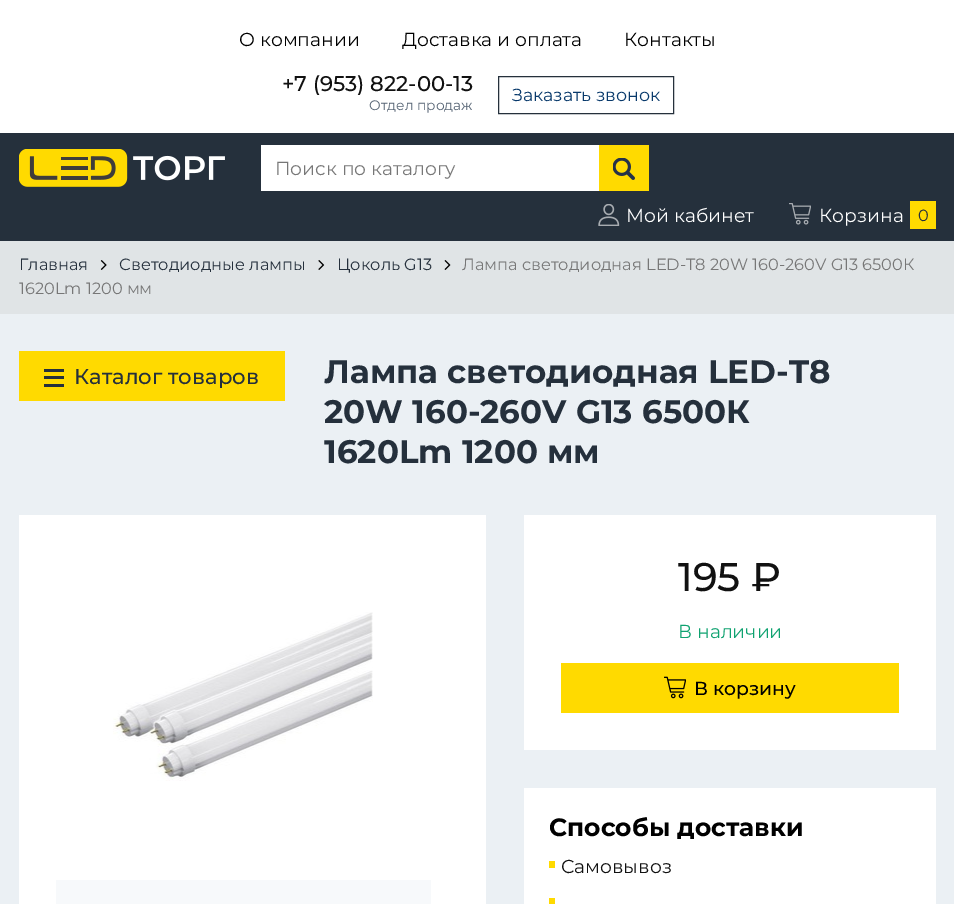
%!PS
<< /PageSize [954 904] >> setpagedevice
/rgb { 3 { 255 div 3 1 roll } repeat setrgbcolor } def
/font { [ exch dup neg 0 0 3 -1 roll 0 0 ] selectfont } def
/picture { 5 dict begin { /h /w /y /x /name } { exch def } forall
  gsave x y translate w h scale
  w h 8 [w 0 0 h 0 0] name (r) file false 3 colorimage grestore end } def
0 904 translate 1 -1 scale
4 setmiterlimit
235 240 244 rgb
0 0 954 904 rectfill
255 255 255 rgb
0 0 954 133 rectfill
37 48 60 rgb
498.5 76.5 175 37 rectstroke
0 133 954 108 rectfill
(img/1.rgb) 19 149 206 38 picture
255 255 255 rgb
261 145 338 46 rectfill
255 218 0 rgb
599 145 50 46 rectfill
(img/2.rgb) 613 158 22 22 picture
(img/3.rgb) 598 204 22 22 picture
(img/4.rgb) 789 203 22 22 picture
910 201 26 28 rectfill
224 228 230 rgb
0 241 954 73 rectfill
(img/5.rgb) 100 260 7 10 picture
(img/6.rgb) 318 260 7 10 picture
(img/7.rgb) 444 260 7 10 picture
[
  [19 351 266 50 255 218 0]
  [44 376 20 3 37 48 60]
  [44 369 20 3 37 48 60]
  [44 384 20 3 37 48 60]
  [19 515 467 389 255 255 255]
] { aload pop rgb rectfill } forall
(img/8.rgb) 113 612 260 169 picture
[
  [56 880 375 24 247 249 251]
  [524 515 412 235 255 255 255]
  [561 663 338 50 255 218 0]
] { aload pop rgb rectfill } forall
(img/9.rgb) 664 676 22 23 picture
[
  [524 788 412 116 255 255 255]
  [549 861 6 7 255 218 0]
  [549 898 6 6 255 218 0]
] { aload pop rgb rectfill } forall
/Montserrat-Regular 18.75 font
0 0 0 rgb
[
  [(О компании) 239 46]
  [(Доставка и оплата) 402 46]
  [(Контакты) 624 46]
] { aload pop moveto show } forall
/Montserrat-Medium 21.25 font
17 17 17 rgb
282 91 moveto (+7 \(953\) 822-00-13) show
/Montserrat-Regular 13.75 font
87 101 117 rgb
369 110 moveto (Отдел продаж) show
/Montserrat-Regular 17.5 font
8 57 107 rgb
512 101 moveto (Заказать звонок) show
/Montserrat-Regular 18.75 font
119 119 119 rgb
275 175 moveto (Поиск по каталогу) show
255 255 255 rgb
626 222 moveto (Мой кабинет) show
819 222 moveto (Корзина) show
/Montserrat-Regular 16.25 font
37 48 60 rgb
[
  [(0) 918 221]
  [(Главная) 19 270]
  [(Светодиодные лампы) 119 270]
  [(Цоколь G13) 337 270]
] { aload pop moveto show } forall
119 119 119 rgb
462 270 moveto (Лампа светодиодная LED-T8 20W 160-260V G13 6500К) show
19 294 moveto (1620Lm 1200 мм) show
/Montserrat-Medium 21.25 font
37 48 60 rgb
74 384 moveto (Каталог товаров) show
/Montserrat-Bold 32.5 font
[
  [(Лампа светодиодная LED-T8) 324 383]
  [(20W 160-260V G13 6500К) 324 423]
  [(1620Lm 1200 мм) 324 463]
] { aload pop moveto show } forall
/Montserrat-Medium 40 font
17 17 17 rgb
678 591 moveto (195 ₽) show
/Montserrat-Regular 18.75 font
15 162 112 rgb
678 638 moveto (В наличии) show
/Montserrat-Medium 18.75 font
0 0 0 rgb
694 695 moveto (В корзину) show
/Montserrat-Bold 25 font
549 836 moveto (Способы доставки) show
/Montserrat-Regular 18.75 font
17 17 17 rgb
561 873 moveto (Самовывоз) show
showpage
